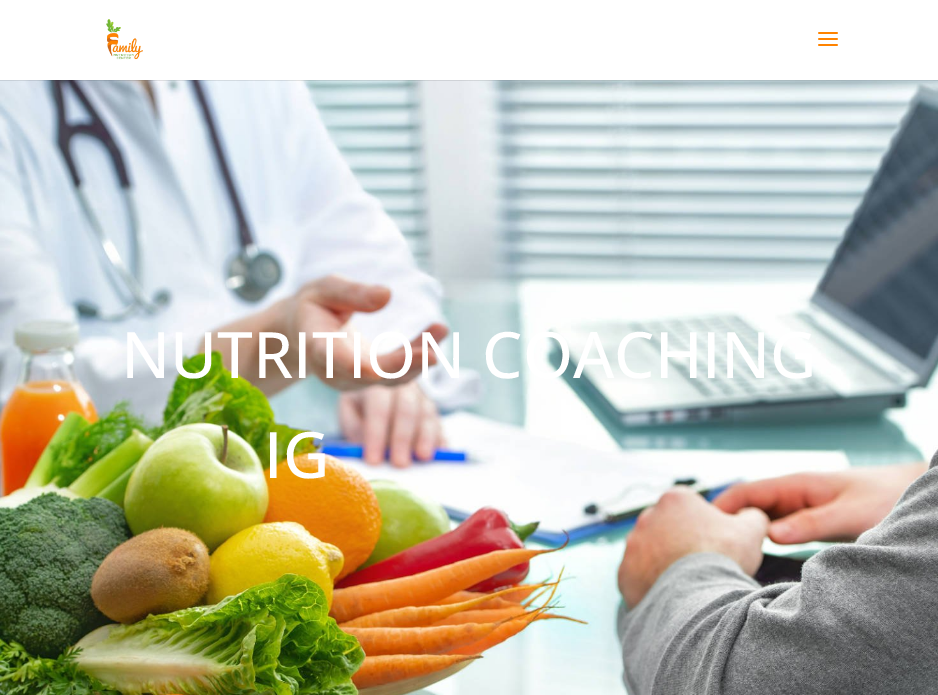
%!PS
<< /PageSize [938 695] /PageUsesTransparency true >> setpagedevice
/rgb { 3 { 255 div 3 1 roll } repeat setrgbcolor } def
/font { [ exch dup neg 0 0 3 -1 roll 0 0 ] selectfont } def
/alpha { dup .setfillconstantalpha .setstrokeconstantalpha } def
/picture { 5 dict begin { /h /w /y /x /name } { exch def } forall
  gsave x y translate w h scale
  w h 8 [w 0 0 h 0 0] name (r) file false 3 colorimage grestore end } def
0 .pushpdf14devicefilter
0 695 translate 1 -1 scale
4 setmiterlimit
255 255 255 rgb
0 0 938 695 rectfill
(img/3.rgb) 0 80 938 615 picture
0.1 alpha
0 0 0 rgb
0 80 938 1 rectfill
1 alpha
(img/1.rgb) 106 19 37 41 picture
(img/2.rgb) 818 32 20 14 picture
/OpenSans-Medium 64 font
255 255 255 rgb
121 378 moveto (NUTRITION COACHING) show
264 478 moveto (IG) show
.poppdf14devicefilter showpage
